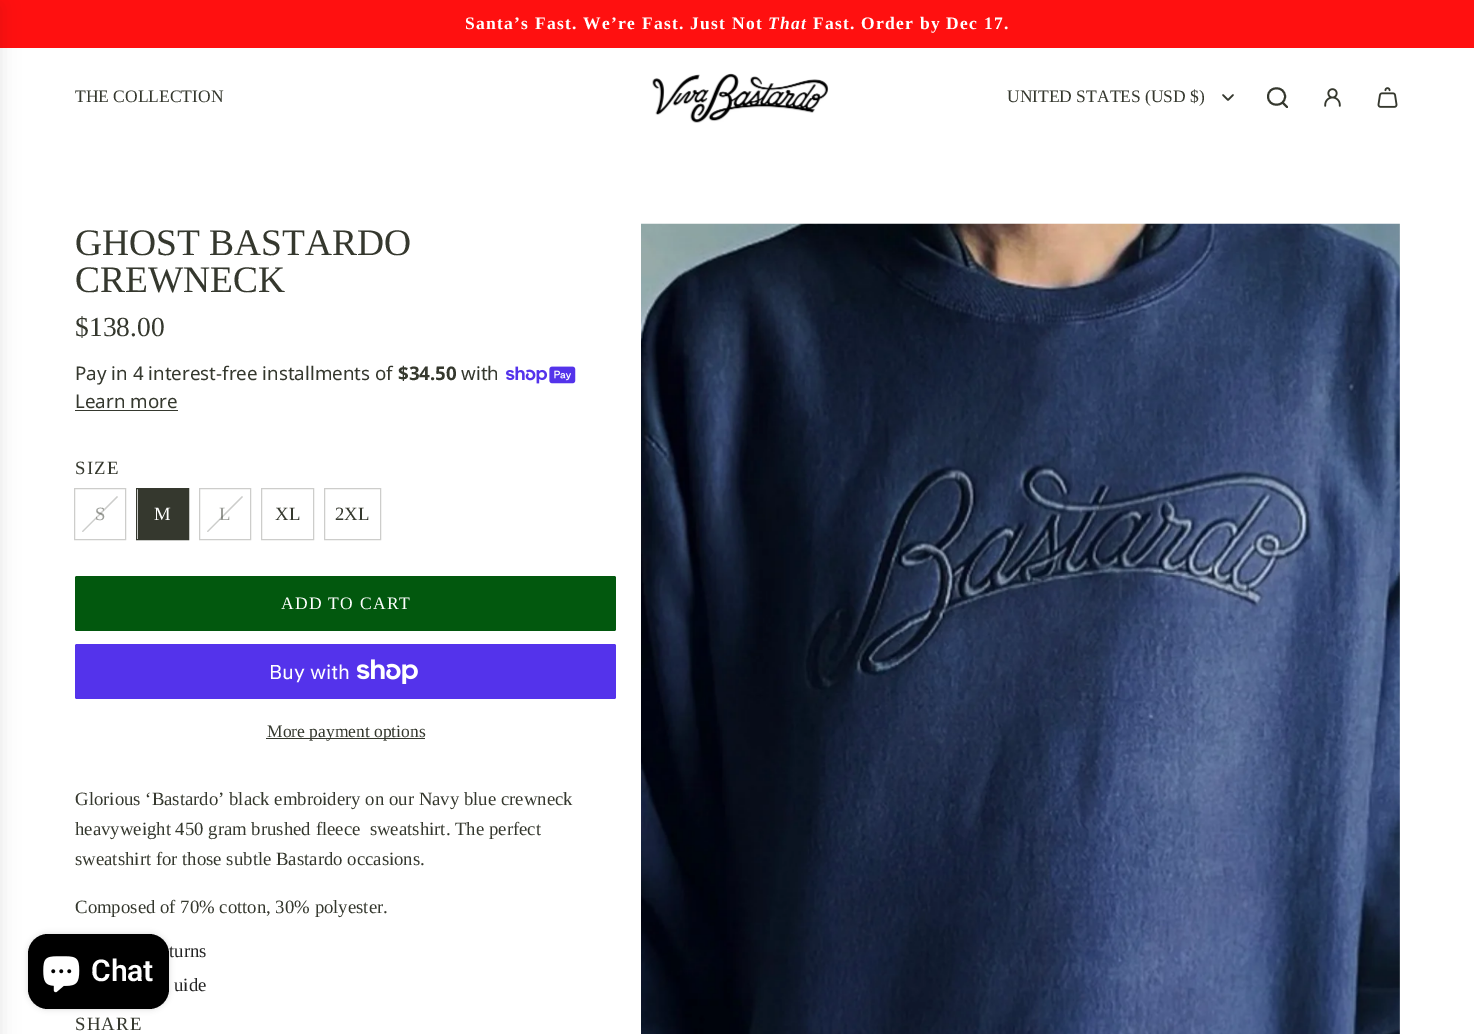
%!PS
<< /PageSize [1474 1034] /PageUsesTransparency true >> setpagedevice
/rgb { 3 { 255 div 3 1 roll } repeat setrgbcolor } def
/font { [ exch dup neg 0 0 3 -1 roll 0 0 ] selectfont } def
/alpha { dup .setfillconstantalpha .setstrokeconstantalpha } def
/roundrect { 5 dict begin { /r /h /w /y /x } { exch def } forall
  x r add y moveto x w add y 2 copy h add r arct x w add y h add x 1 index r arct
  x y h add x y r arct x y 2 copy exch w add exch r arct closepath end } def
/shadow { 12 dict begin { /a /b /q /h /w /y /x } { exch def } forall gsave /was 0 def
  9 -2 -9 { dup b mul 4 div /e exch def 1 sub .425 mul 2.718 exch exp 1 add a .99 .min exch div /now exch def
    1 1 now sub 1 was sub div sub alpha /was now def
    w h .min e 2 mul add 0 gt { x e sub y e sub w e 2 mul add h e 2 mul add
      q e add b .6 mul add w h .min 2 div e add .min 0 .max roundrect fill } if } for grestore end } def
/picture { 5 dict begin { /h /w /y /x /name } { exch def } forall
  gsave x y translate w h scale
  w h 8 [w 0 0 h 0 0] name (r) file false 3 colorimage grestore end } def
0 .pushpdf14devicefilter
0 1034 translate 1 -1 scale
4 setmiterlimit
255 255 255 rgb
0 0 1474 1034 rectfill
255 16 16 rgb
0 0 1474 48 rectfill
0 0 0 rgb
-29 6 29 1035 0 9.5 0.1 shadow
(img/1.rgb) 652 73 177 50 picture
53 56 46 rgb
1.5 setlinewidth
1 setlinecap
1 setlinejoin
1223 95 moveto 1228 100 lineto 1233 95 lineto stroke
1.9 setlinewidth
1282.5 102.5 moveto 1287 107 lineto 1268 96.5 moveto 1268 107.5 1285 107.5 1285 96.5 curveto 1285 85.5 1268 85.5 1268 96.5 curveto closepath stroke
(img/2.rgb) 1324 88 17 19 picture
(img/3.rgb) 1377 87 21 21 picture
(img/4.rgb) 506 366 70 18 picture
75 410 103 1 rectfill
205 205 203 rgb
1 setlinewidth
0 setlinecap
0 setlinejoin
74.5 488.5 51 51 rectstroke
53 56 46 rgb
138 489 50 50 rectfill
136.5 488.5 52 51 rectstroke
205 205 203 rgb
199.5 488.5 51 51 rectstroke
261.5 488.5 52 51 rectstroke
324.5 488.5 56 51 rectstroke
2 88 14 rgb
75 576 541 55 2 roundrect fill
84 51 235 rgb
75 644 541 55 2 roundrect fill
(img/5.rgb) 356 659 62 25 picture
53 56 46 rgb
266 738 159 1 rectfill
(img/6.rgb) 641 223 759 811 picture
0 0 0 rgb
28 934 141 75 20 3 0.15 shadow
28 934 141 75 20 roundrect fill
(img/7.rgb) 43 956 37 37 picture
/LiberationSerif-Bold 17.5 font
255 255 255 rgb
465 29 moveto 1.25 0 (Santa’s Fast. We’re Fast. Just Not) ashow
/LiberationSerif-BoldItalic 17.5 font
768 29 moveto 1.25 0 (That) ashow
/LiberationSerif-Bold 17.5 font
813 29 moveto 1.25 0 (Fast. Order by Dec 17.) ashow
/LiberationSerif-Regular 17.5 font
53 56 46 rgb
75 102 moveto (THE COLLECTION) show
1007 102 moveto (UNITED STATES \(USD $\)) show
/LiberationSerif-Regular 37.5 font
75 255 moveto (GHOST BASTARDO) show
75 292 moveto (CREWNECK) show
/LiberationSerif-Regular 27.5 font
75 336 moveto ($138.00) show
/NotoSans-Regular 18.75 font
75 380 moveto (Pay in 4 interest-free installments of) show
/NotoSans-Bold 18.75 font
398 380 moveto ($34.50) show
/NotoSans-Regular 18.75 font
461 380 moveto (with) show
75 408 moveto (Learn more) show
/LiberationSerif-Regular 18.75 font
75 474 moveto 1.25 0 (SIZE) ashow
154 156 151 rgb
95 520 moveto (S) show
0.25 alpha
53 56 46 rgb
82 531.5 moveto 117 496 lineto 118 497 lineto 83 532 lineto closepath fill
1 alpha
255 255 255 rgb
154 520 moveto (M) show
154 156 151 rgb
219 520 moveto (L) show
0.25 alpha
53 56 46 rgb
207 531.5 moveto 242 496 lineto 243 497 lineto 208 532 lineto closepath fill
1 alpha
275 520 moveto (XL) show
335 520 moveto (2XL) show
/LiberationSerif-Regular 17.5 font
255 255 255 rgb
281 609 moveto 1.25 0 (ADD TO CART) ashow
/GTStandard-Regular 20 font
269 679 moveto (Buy with) show
/LiberationSerif-Regular 17.5 font
53 56 46 rgb
267 737 moveto (More payment options) show
/LiberationSerif-Regular 18.75 font
[
  [(Glorious ‘Bastardo’ black embroidery on our Navy blue crewneck) 75 805]
  [(heavyweight 450 gram brushed fleece  sweatshirt. The perfect) 75 835]
  [(sweatshirt for those subtle Bastardo occasions.) 75 865]
  [(Composed of 70% cotton, 30% polyester.) 75 913]
] { aload pop moveto show } forall
36 36 36 rgb
169 957 moveto (turns) show
174 991 moveto (uide) show
53 56 46 rgb
75 1030 moveto 1.25 0 (SHARE) ashow
/Roboto-SemiBold 30 font
255 255 255 rgb
91 981 moveto (Chat) show
.poppdf14devicefilter showpage
